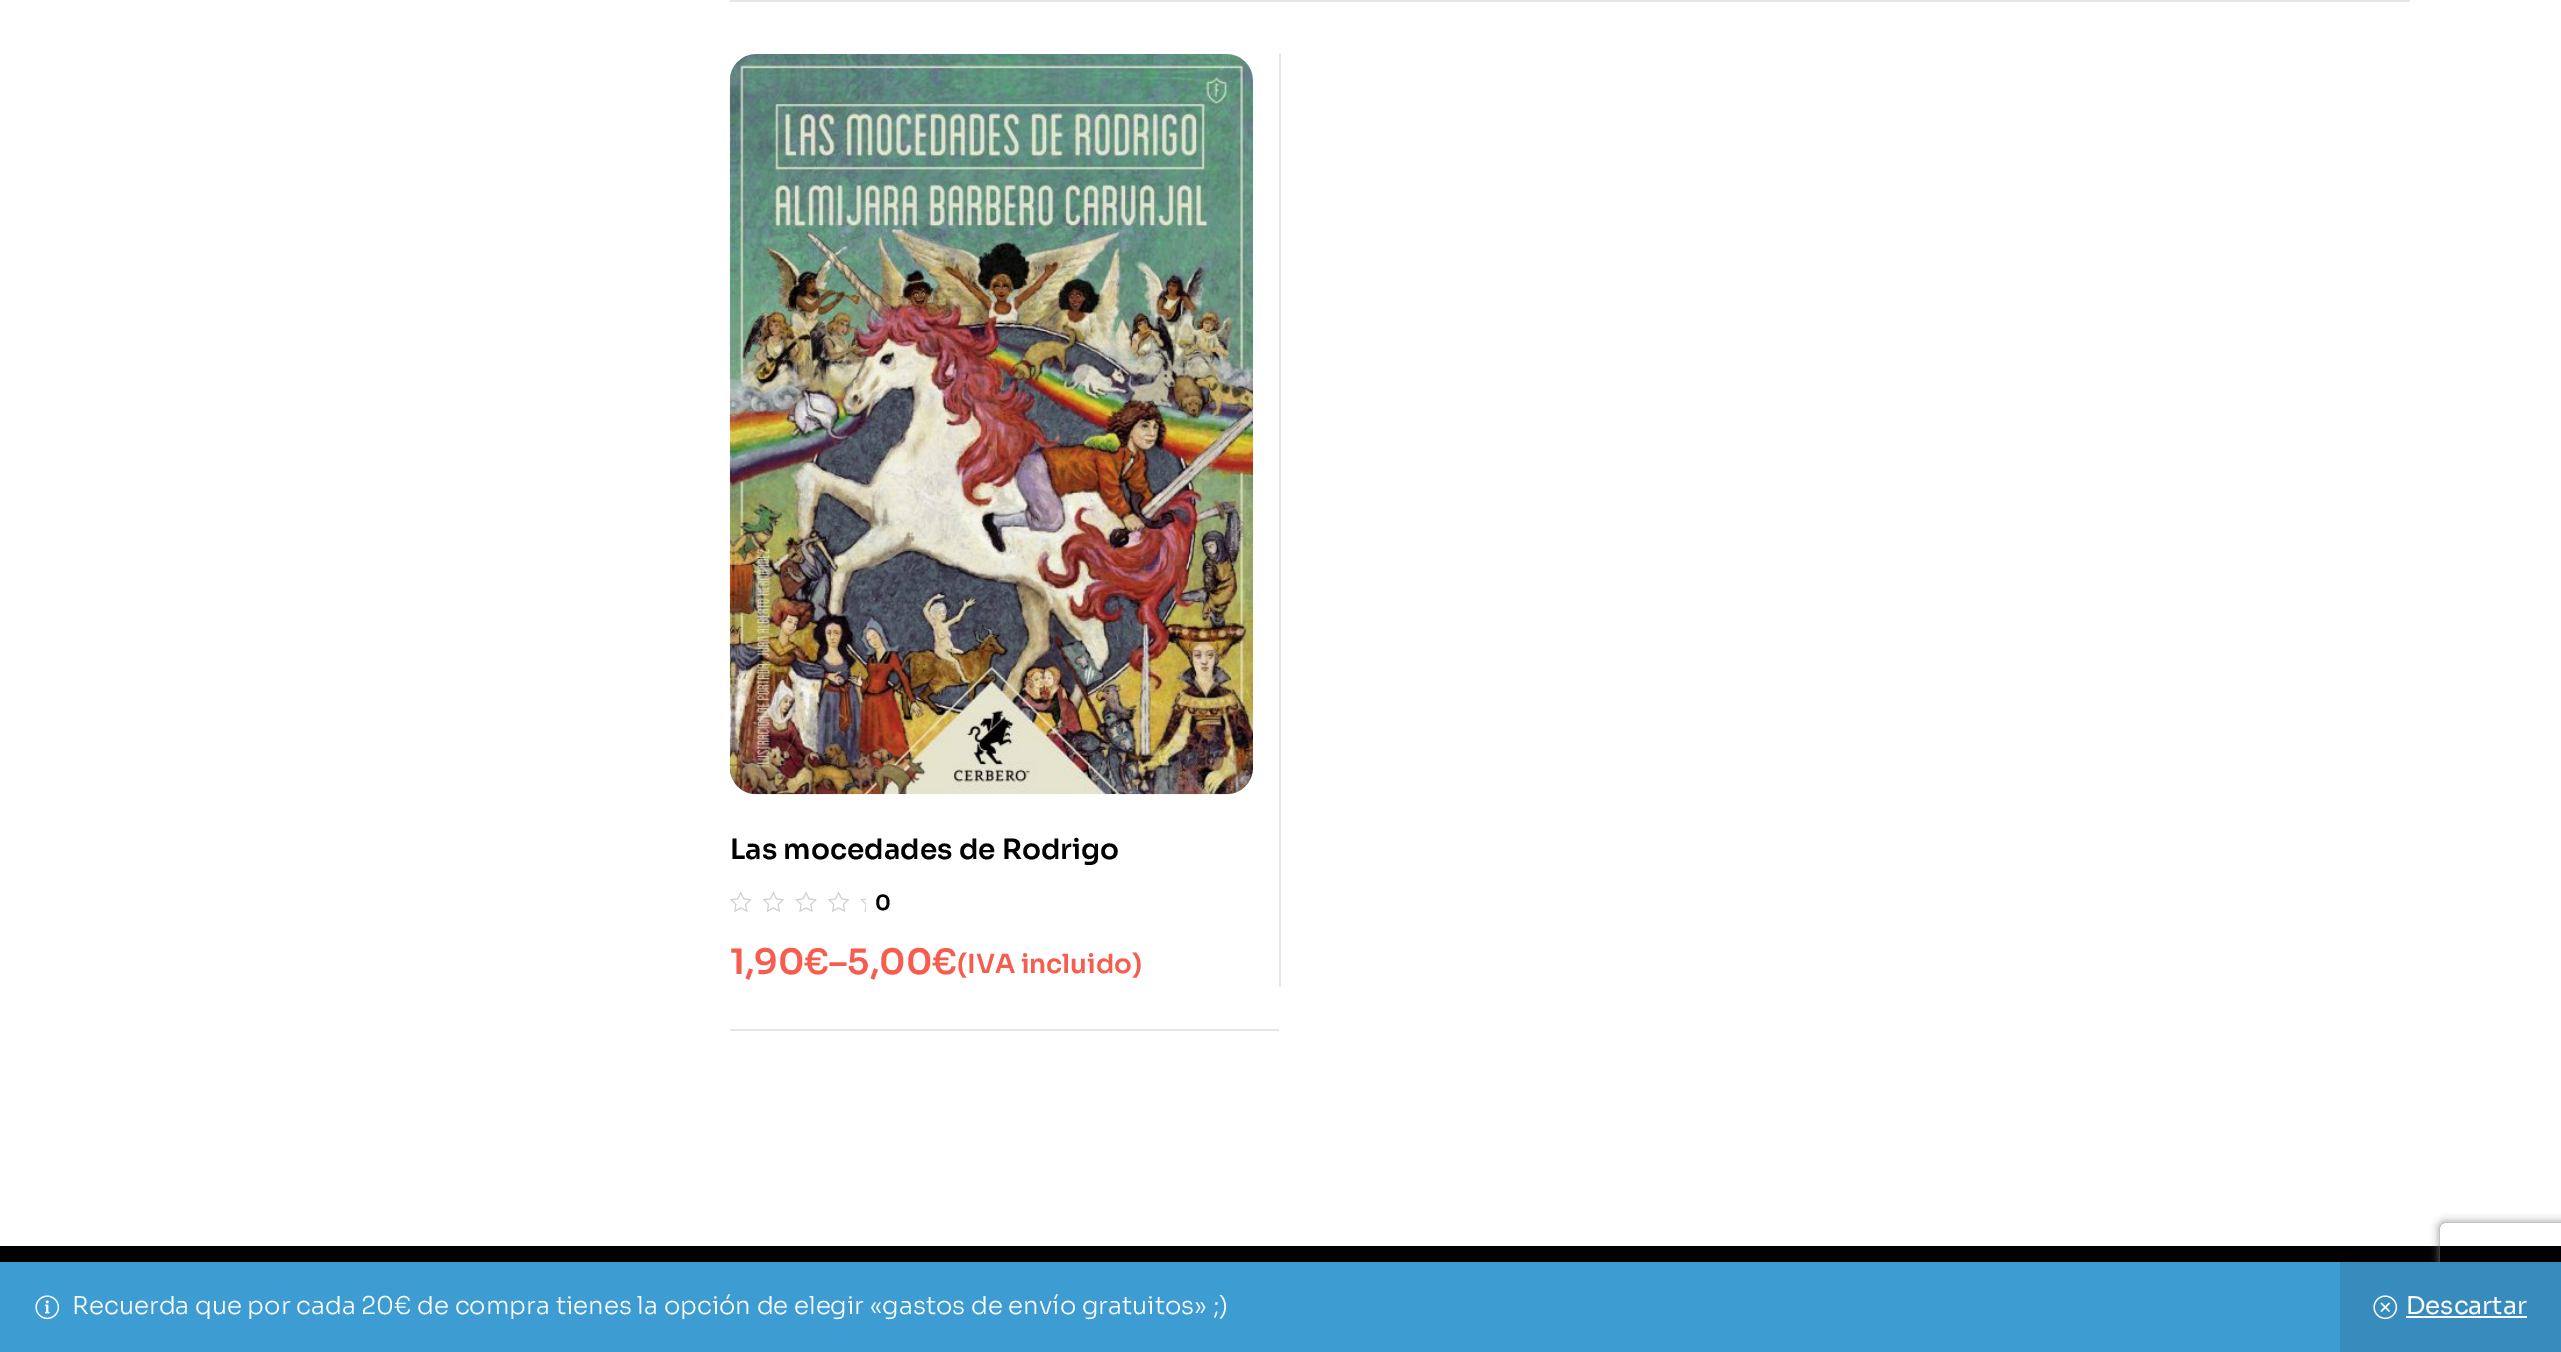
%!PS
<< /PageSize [2561 1352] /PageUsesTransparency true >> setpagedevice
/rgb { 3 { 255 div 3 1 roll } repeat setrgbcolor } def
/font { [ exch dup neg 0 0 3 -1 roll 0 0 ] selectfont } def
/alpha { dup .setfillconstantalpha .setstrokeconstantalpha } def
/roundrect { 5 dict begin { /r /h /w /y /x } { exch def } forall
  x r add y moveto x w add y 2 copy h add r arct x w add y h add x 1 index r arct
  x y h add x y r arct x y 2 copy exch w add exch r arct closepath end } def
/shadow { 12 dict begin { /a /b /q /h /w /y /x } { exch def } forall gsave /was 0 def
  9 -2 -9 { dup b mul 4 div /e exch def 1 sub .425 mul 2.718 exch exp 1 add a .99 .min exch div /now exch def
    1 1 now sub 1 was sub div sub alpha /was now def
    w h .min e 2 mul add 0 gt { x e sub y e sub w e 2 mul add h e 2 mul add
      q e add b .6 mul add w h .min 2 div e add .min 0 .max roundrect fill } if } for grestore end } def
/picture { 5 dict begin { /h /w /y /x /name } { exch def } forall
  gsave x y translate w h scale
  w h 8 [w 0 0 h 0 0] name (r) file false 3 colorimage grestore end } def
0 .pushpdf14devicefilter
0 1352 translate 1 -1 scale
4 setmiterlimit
255 255 255 rgb
0 0 2561 1352 rectfill
230 230 230 rgb
730 0 1680 2 rectfill
1279 54 2 933 rectfill
(img/1.rgb) 729 54 524 741 picture
(img/2.rgb) 730 891 136 21 picture
730 1029 549 2 rectfill
0 0 0 rgb
0 1246 2561 16 rectfill
gsave
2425 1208 moveto 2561 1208 lineto 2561 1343 lineto 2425 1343 lineto closepath 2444 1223 moveto 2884 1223 lineto 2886 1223 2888 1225 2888 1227 curveto 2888 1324 lineto 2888 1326 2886 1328 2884 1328 curveto 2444 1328 lineto 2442 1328 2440 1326 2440 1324 curveto 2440 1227 lineto 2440 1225 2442 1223 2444 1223 curveto closepath eoclip newpath
128 128 128 rgb
2440 1223 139 105 4 4.5 1 shadow
grestore
61 156 210 rgb
0 1262 2340 90 rectfill
(img/3.rgb) 35 1295 25 25 picture
55 140 189 rgb
2340 1262 221 90 rectfill
(img/4.rgb) 2373 1295 25 25 picture
255 255 255 rgb
2406 1316 121 2 rectfill
/Sora-SemiBold 28 font
0 0 0 rgb
730 859 moveto (Las mocedades de Rodrigo) show
/Sora-SemiBold 21 font
875 910 moveto (0) show
/Sora-SemiBold 35 font
246 93 78 rgb
730 974 moveto (1,90€–5,00€) show
/Sora-SemiBold 26.25 font
957 973 moveto (\(IVA incluido\)) show
/Sora-Light 24.5 font
255 255 255 rgb
72 1314 moveto (Recuerda que por cada 20€ de compra tienes la opción de elegir «gastos de envío gratuitos» ;\)) show
/Sora-Regular 24.5 font
2406 1314 moveto (Descartar) show
.poppdf14devicefilter showpage
